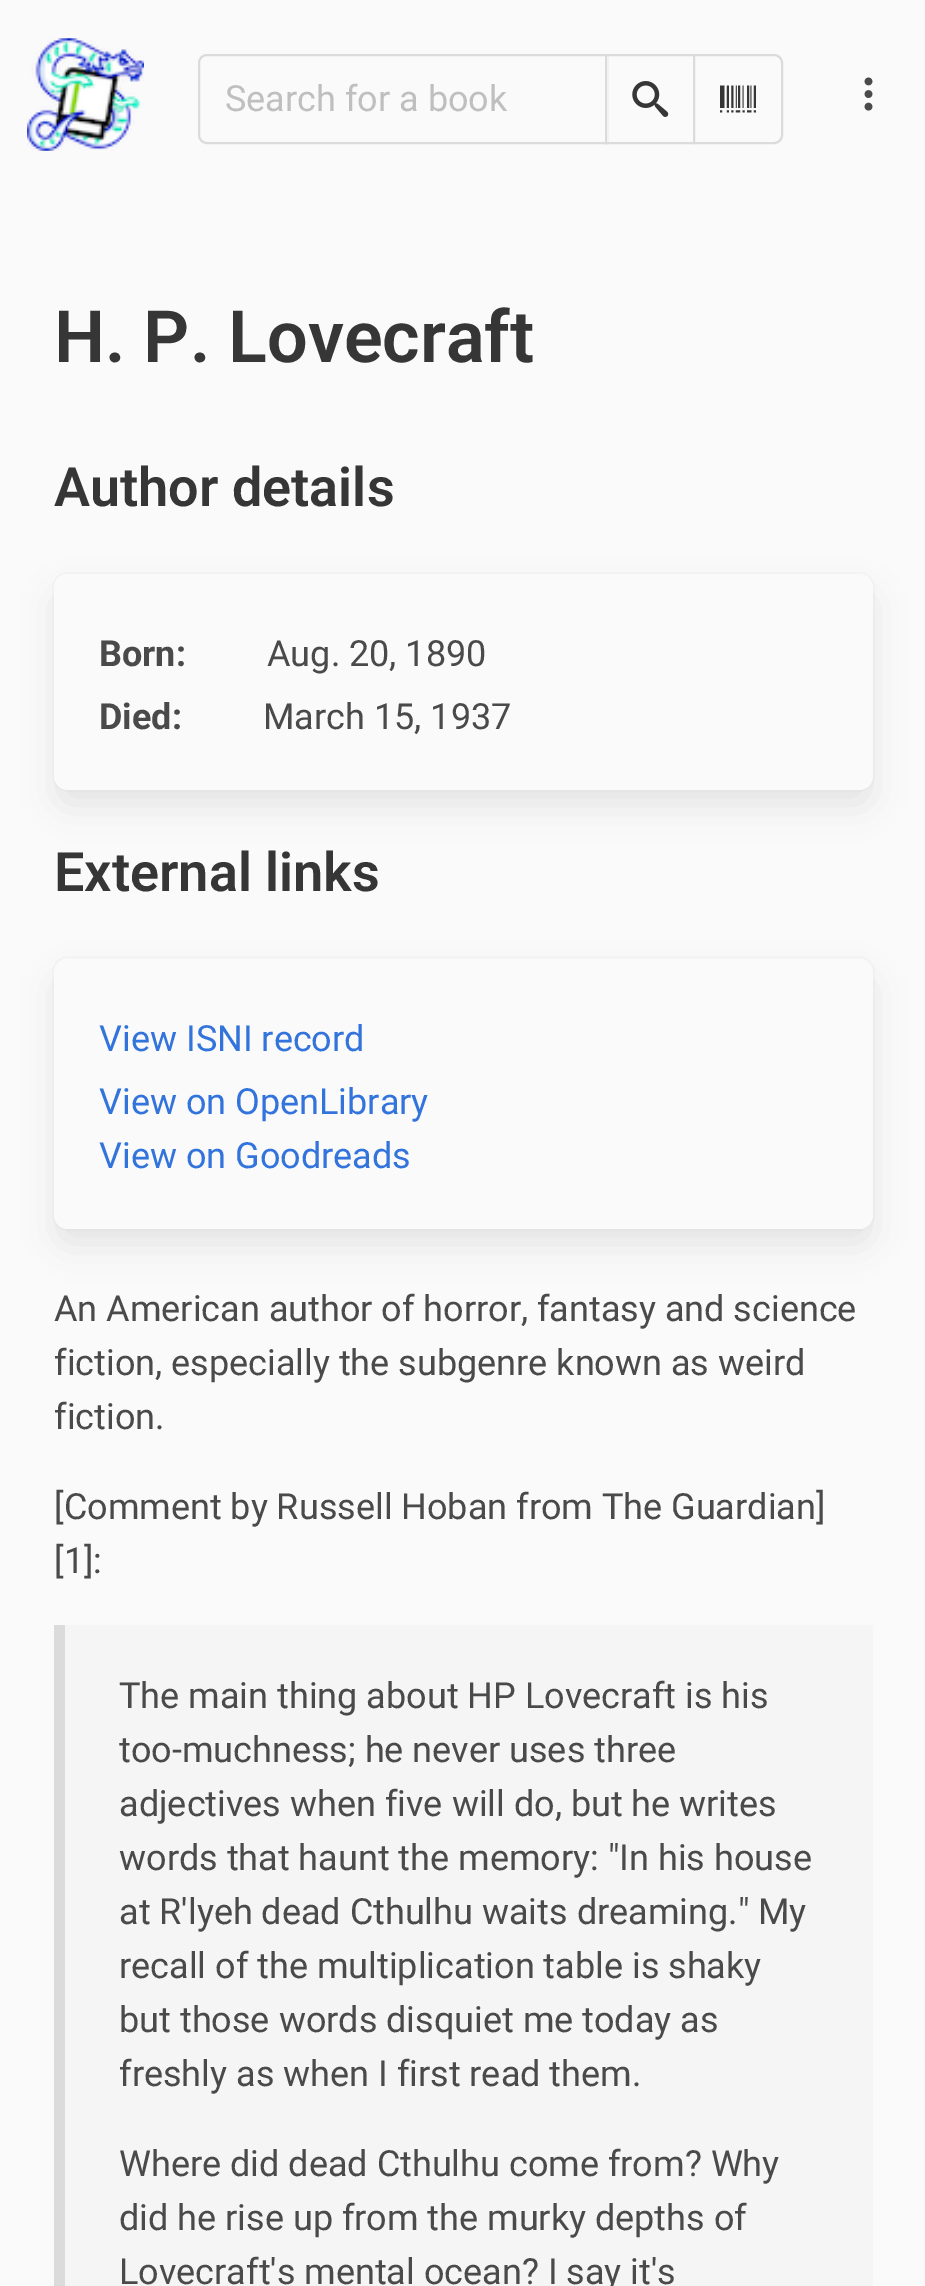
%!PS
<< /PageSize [925 2286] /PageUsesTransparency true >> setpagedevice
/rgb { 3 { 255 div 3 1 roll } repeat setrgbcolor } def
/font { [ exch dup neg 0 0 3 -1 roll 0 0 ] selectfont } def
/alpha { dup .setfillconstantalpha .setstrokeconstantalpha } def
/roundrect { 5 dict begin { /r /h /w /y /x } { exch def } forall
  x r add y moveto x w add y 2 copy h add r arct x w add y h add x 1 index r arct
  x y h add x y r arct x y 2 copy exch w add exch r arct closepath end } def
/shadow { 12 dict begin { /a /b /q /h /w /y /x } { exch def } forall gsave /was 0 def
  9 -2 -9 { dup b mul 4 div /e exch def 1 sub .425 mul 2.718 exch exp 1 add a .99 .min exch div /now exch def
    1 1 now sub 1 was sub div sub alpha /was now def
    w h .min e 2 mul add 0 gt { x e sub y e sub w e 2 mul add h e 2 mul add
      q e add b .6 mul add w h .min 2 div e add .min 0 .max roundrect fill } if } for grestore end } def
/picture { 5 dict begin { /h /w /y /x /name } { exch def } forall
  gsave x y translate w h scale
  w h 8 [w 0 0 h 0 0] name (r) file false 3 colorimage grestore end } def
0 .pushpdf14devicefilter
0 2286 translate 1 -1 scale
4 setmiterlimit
250 250 250 rgb
0 0 925 2286 rectfill
(img/1.rgb) 27 38 117 113 picture
219 219 219 rgb
2 setlinewidth
207 55 moveto 607 55 lineto 607 143 lineto 207 143 lineto 202.5 143 199 139.5 199 135 curveto 199 63 lineto 199 58.5 202.5 55 207 55 curveto closepath stroke
250 250 250 rgb
607 56 1 86 rectfill
219 219 219 rgb
606 55 88 88 rectstroke
(img/2.rgb) 632 81 37 36 picture
250 250 250 rgb
694 55 moveto 774 55 lineto 778.5 55 782 58.5 782 63 curveto 782 135 lineto 782 139.5 778.5 143 774 143 curveto 694 143 lineto closepath gsave fill grestore
219 219 219 rgb
stroke
(img/3.rgb) 720 85 36 28 picture
(img/4.rgb) 864 77 9 34 picture
245 245 245 rgb
53 573 821 218 15 roundrect stroke
10 10 10 rgb
59 596 810 207 9 18 0.1 shadow
250 250 250 rgb
54 574 819 216 14 roundrect fill
245 245 245 rgb
53 957 821 273 15 roundrect stroke
10 10 10 rgb
59 981 810 261 9 18 0.1 shadow
250 250 250 rgb
54 959 819 270 14 roundrect fill
245 245 245 rgb
65 1625 808 661 rectfill
219 219 219 rgb
54 1625 11 661 rectfill
/Roboto-Regular 36 font
191 191 191 rgb
225 111 moveto (Search for a book) show
/Roboto-SemiBold 72 font
54 54 54 rgb
54 362 moveto (H. P. Lovecraft) show
/Roboto-SemiBold 54 font
54 506 moveto (Author details) show
/Roboto-Bold 36 font
74 74 74 rgb
99 666 moveto (Born:) show
/Roboto-Regular 36 font
267 666 moveto (Aug. 20, 1890) show
/Roboto-Bold 36 font
99 729 moveto (Died:) show
/Roboto-Regular 36 font
263 729 moveto (March 15, 1937) show
/Roboto-SemiBold 54 font
54 54 54 rgb
54 891 moveto (External links) show
/Roboto-Regular 36 font
50 115 220 rgb
[
  [(View ISNI record) 99 1051]
  [(View on OpenLibrary) 99 1114]
  [(View on Goodreads) 99 1168]
] { aload pop moveto show } forall
74 74 74 rgb
[
  [(An American author of horror, fantasy and science) 54 1321]
  [(fiction, especially the subgenre known as weird) 54 1375]
  [(fiction.) 54 1429]
  [([Comment by Russell Hoban from The Guardian]) 54 1519]
  [([1]:) 54 1573]
  [(The main thing about HP Lovecraft is his) 119 1708]
  [(too-muchness; he never uses three) 119 1762]
  [(adjectives when five will do, but he writes) 119 1816]
  [(words that haunt the memory: "In his house) 119 1870]
  [(at R'lyeh dead Cthulhu waits dreaming." My) 119 1924]
  [(recall of the multiplication table is shaky) 119 1978]
  [(but those words disquiet me today as) 119 2032]
  [(freshly as when I first read them.) 119 2086]
  [(Where did dead Cthulhu come from? Why) 119 2176]
  [(did he rise up from the murky depths of) 119 2230]
  [(Lovecraft's mental ocean? I say it's) 119 2284]
] { aload pop moveto show } forall
.poppdf14devicefilter showpage
